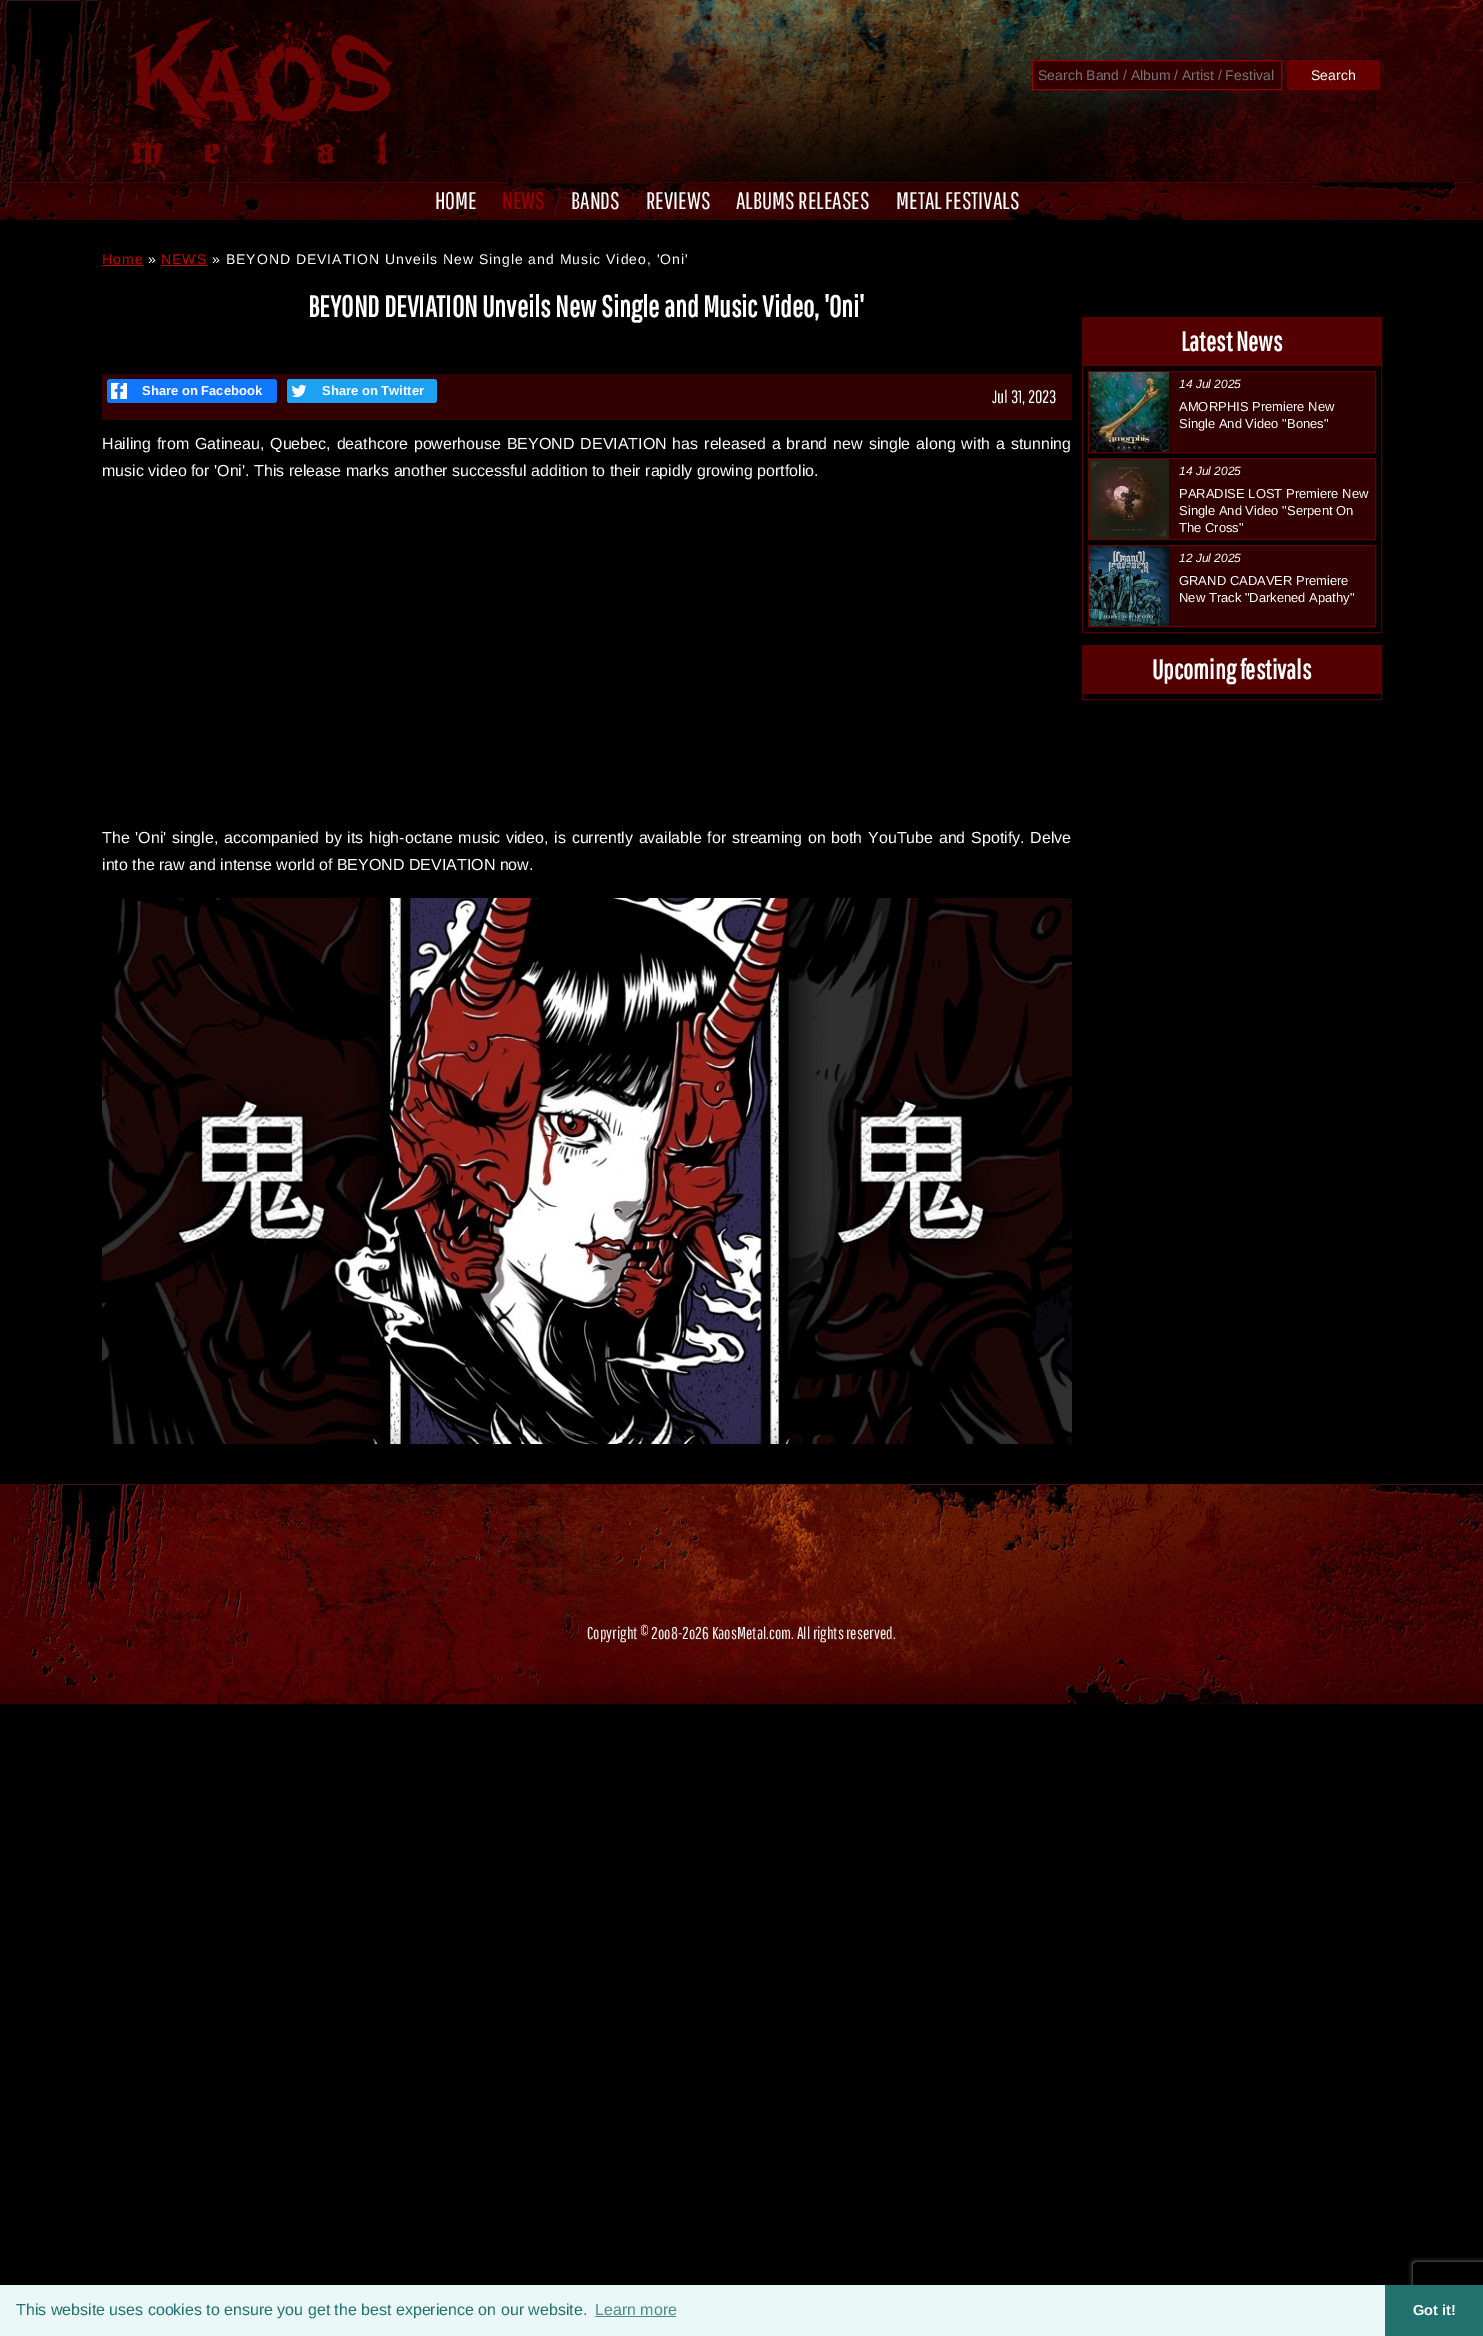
%!PS
<< /PageSize [1483 2336] /PageUsesTransparency true >> setpagedevice
/rgb { 3 { 255 div 3 1 roll } repeat setrgbcolor } def
/font { [ exch dup neg 0 0 3 -1 roll 0 0 ] selectfont } def
/alpha { dup .setfillconstantalpha .setstrokeconstantalpha } def
/roundrect { 5 dict begin { /r /h /w /y /x } { exch def } forall
  x r add y moveto x w add y 2 copy h add r arct x w add y h add x 1 index r arct
  x y h add x y r arct x y 2 copy exch w add exch r arct closepath end } def
/shadow { 12 dict begin { /a /b /q /h /w /y /x } { exch def } forall gsave /was 0 def
  9 -2 -9 { dup b mul 4 div /e exch def 1 sub .425 mul 2.718 exch exp 1 add a .99 .min exch div /now exch def
    1 1 now sub 1 was sub div sub alpha /was now def
    w h .min e 2 mul add 0 gt { x e sub y e sub w e 2 mul add h e 2 mul add
      q e add b .6 mul add w h .min 2 div e add .min 0 .max roundrect fill } if } for grestore end } def
/picture { 5 dict begin { /h /w /y /x /name } { exch def } forall
  gsave x y translate w h scale
  w h 8 [w 0 0 h 0 0] name (r) file false 3 colorimage grestore end } def
0 .pushpdf14devicefilter
0 2336 translate 1 -1 scale
4 setmiterlimit
0 0 0 rgb
0 0 1483 2336 rectfill
(img/1.rgb) 0 0 1483 220 picture
(img/2.rgb) 128 15 265 155 picture
51 0 0 rgb
1032.5 60.5 moveto 1281.5 60.5 lineto 1281.5 89.5 lineto 1032.5 89.5 lineto closepath gsave fill grestore
153 0 0 rgb
stroke
102 0 0 rgb
1287.5 60.5 92 29 2.5 roundrect gsave fill grestore
stroke
[
  [102 265 41 1 204 0 0]
  [161 265 46 1 204 0 0]
  [102 374 970 46 51 0 0]
] { aload pop rgb rectfill } forall
17 119 255 rgb
107 379 170 24 3 roundrect fill
(img/3.rgb) 111 383 16 16 picture
29 161 242 rgb
287 379 150 24 3 roundrect fill
(img/4.rgb) 287 379 20 24 picture
(img/5.rgb) 102 898 970 546 picture
85 0 0 rgb
1082.5 317.5 299 315 rectstroke
1083 318 298 48 rectfill
51 0 0 rgb
1169 372 206 80 rectfill
102 0 0 rgb
1088.5 371.5 287 81 rectstroke
(img/6.rgb) 1089 372 80 80 picture
51 0 0 rgb
1169 459 206 80 rectfill
102 0 0 rgb
1088.5 458.5 287 81 rectstroke
(img/7.rgb) 1089 459 80 80 picture
51 0 0 rgb
1169 546 206 80 rectfill
102 0 0 rgb
1088.5 545.5 287 81 rectstroke
(img/8.rgb) 1089 546 80 80 picture
85 0 0 rgb
1082.5 645.5 299 54 rectstroke
1083 646 298 48 rectfill
(img/9.rgb) 0 1484 1483 220 picture
gsave
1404 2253 moveto 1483 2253 lineto 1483 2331 lineto 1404 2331 lineto closepath 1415 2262 moveto 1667 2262 lineto 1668 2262 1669 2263 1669 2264 curveto 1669 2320 lineto 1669 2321 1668 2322 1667 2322 curveto 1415 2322 lineto 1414 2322 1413 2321 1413 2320 curveto 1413 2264 lineto 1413 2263 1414 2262 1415 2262 curveto closepath eoclip newpath
128 128 128 rgb
1413 2262 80 60 2 2.5 1 shadow
grestore
[
  [0 2285 1385 51 234 247 247]
  [595 2316 81 1 73 140 137]
  [1385 2285 98 51 33 113 110]
] { aload pop rgb rectfill } forall
/LiberationSans-Regular 14 font
117 117 117 rgb
1038 80 moveto (Search Band / Album / Artist / Festival) show
255 255 255 rgb
1311 80 moveto (Search) show
/PathwayGothicOne-Regular 24 font
435 209 moveto (HOME) show
153 0 0 rgb
502 209 moveto (NEWS) show
255 255 255 rgb
[
  [(BANDS) 571 209]
  [(REVIEWS) 646 209]
  [(ALBUMS RELEASES) 736 209]
  [(METAL FESTIVALS) 896 209]
] { aload pop moveto show } forall
/LiberationSans-Regular 14 font
204 0 0 rgb
102 264 moveto 1 0 (Home) ashow
255 255 255 rgb
148 264 moveto 1 0 (») ashow
204 0 0 rgb
161 264 moveto 1 0 (NEWS) ashow
255 255 255 rgb
212 264 moveto 1 0 (» BEYOND DEVIATION Unveils New Single and Music Video, 'Oni') ashow
/PathwayGothicOne-Bold 30 font
308 317 moveto (BEYOND DEVIATION Unveils New Single and Music Video, 'Oni') show
/LiberationSans-Bold 13 font
142 395 moveto (Share on Facebook) show
322 395 moveto (Share on Twitter) show
/PathwayGothicOne-Regular 18 font
992 403 moveto (Jul 31, 2023) show
/LiberationSans-Regular 16 font
102 449 moveto 1.5 0 32 (Hailing from Gatineau, Quebec, deathcore powerhouse BEYOND DEVIATION has released a brand new single along with a stunning) widthshow
102 476 moveto (music video for 'Oni'. This release marks another successful addition to their rapidly growing portfolio.) show
102 843 moveto 1.25 0 32 (The 'Oni' single, accompanied by its high-octane music video, is currently available for streaming on both YouTube and Spotify. Delve) widthshow
102 870 moveto (into the raw and intense world of BEYOND DEVIATION now.) show
/PathwayGothicOne-Bold 27 font
1181 351 moveto (Latest News) show
/LiberationSans-Italic 12 font
1179 388 moveto (14 Jul 2025) show
/LiberationSans-Regular 13 font
1179 411 moveto (AMORPHIS Premiere New) show
1179 428 moveto (Single And Video "Bones") show
/LiberationSans-Italic 12 font
1179 475 moveto (14 Jul 2025) show
/LiberationSans-Regular 13 font
[
  [(PARADISE LOST Premiere New) 1179 498]
  [(Single And Video "Serpent On) 1179 515]
  [(The Cross") 1179 532]
] { aload pop moveto show } forall
/LiberationSans-Italic 12 font
1179 562 moveto (12 Jul 2025) show
/LiberationSans-Regular 13 font
1179 585 moveto (GRAND CADAVER Premiere) show
1179 602 moveto (New Track "Darkened Apathy") show
/PathwayGothicOne-Bold 27 font
1152 679 moveto (Upcoming festivals) show
/PathwayGothicOne-Regular 17 font
238 238 238 rgb
587 1639 moveto (Copyright © 2oo8-2o26 KaosMetal.com. All rights reserved.) show
/LiberationSans-Regular 16 font
33 113 110 rgb
16 2315 moveto (This website uses cookies to ensure you get the best experience on our website.) show
73 140 137 rgb
595 2315 moveto (Learn more) show
/LiberationSans-Bold 14.5 font
255 255 255 rgb
1413 2315 moveto (Got it!) show
.poppdf14devicefilter showpage
